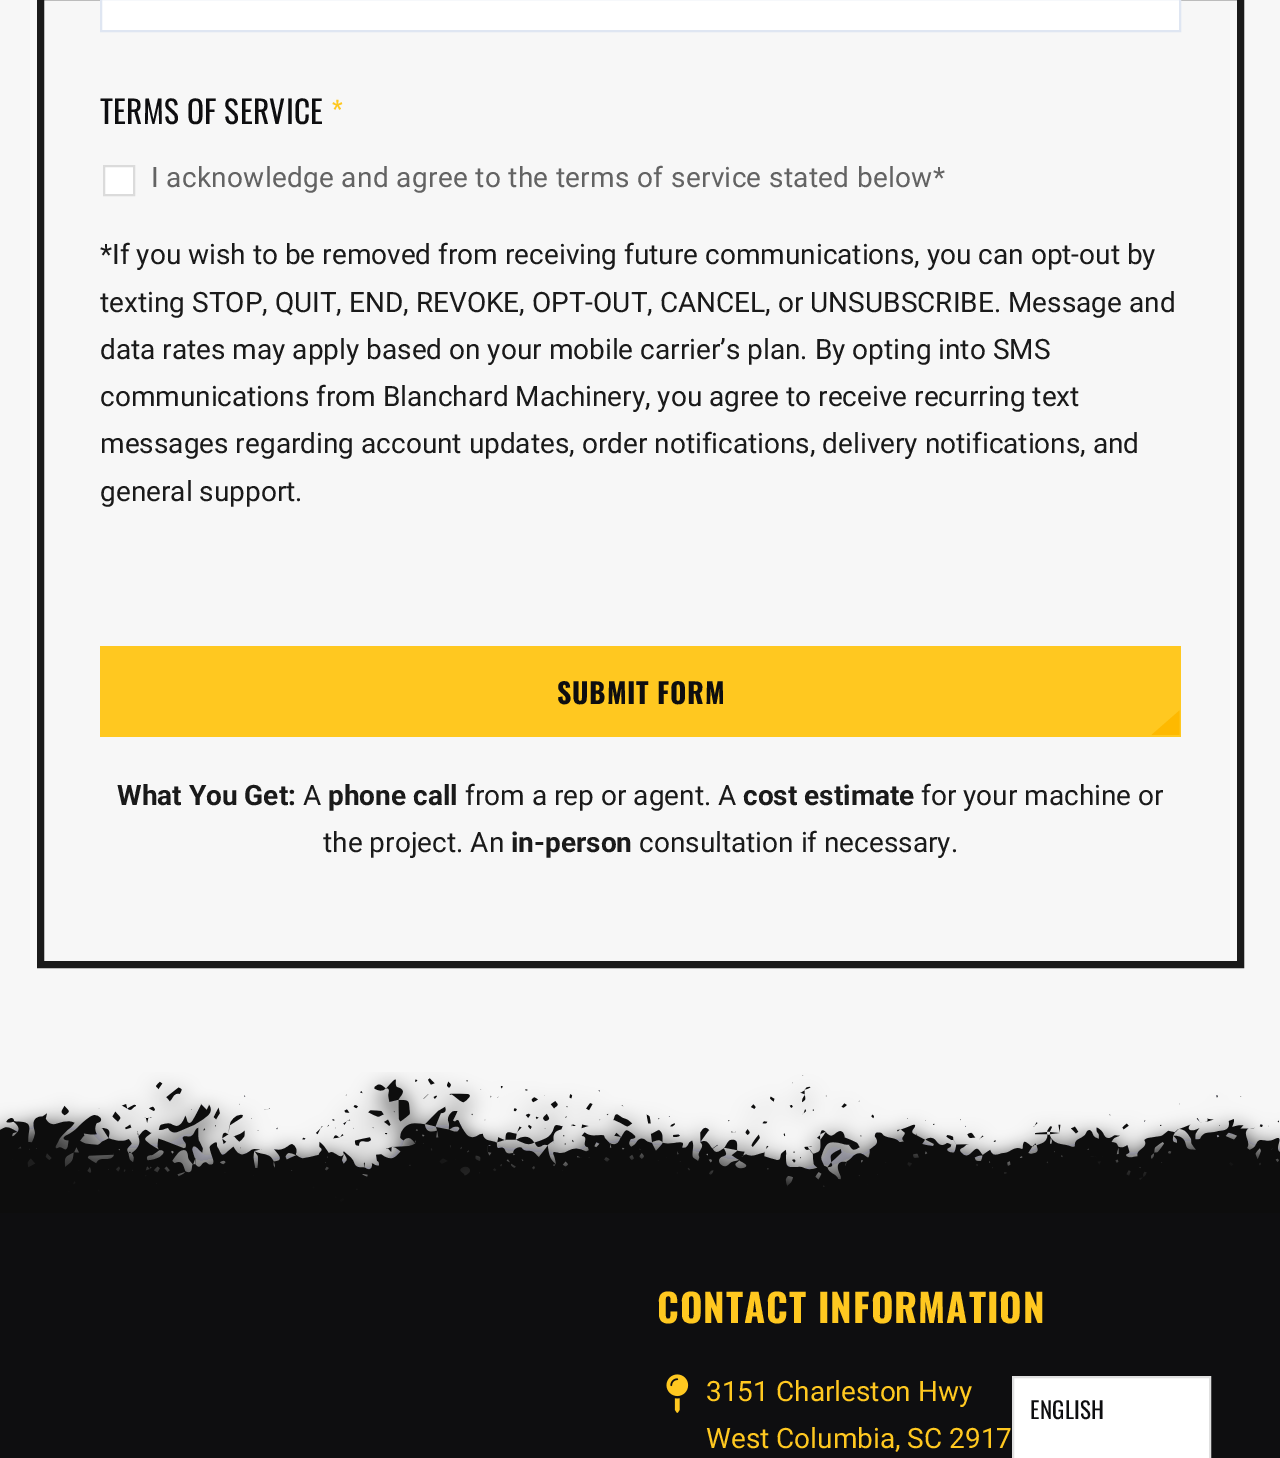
%!PS
<< /PageSize [1280 1458] >> setpagedevice
/rgb { 3 { 255 div 3 1 roll } repeat setrgbcolor } def
/font { [ exch dup neg 0 0 3 -1 roll 0 0 ] selectfont } def
/picture { 5 dict begin { /h /w /y /x /name } { exch def } forall
  gsave x y translate w h scale
  w h 8 [w 0 0 h 0 0] name (r) file false 3 colorimage grestore end } def
0 1458 translate 1 -1 scale
4 setmiterlimit
255 255 255 rgb
0 0 1280 1458 rectfill
247 247 247 rgb
0 0 1280 1178 rectfill
26 26 26 rgb
7 setlinewidth
40.5 -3.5 1200 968 rectstroke
255 255 255 rgb
101 -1 moveto 1180 -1 lineto 1180 31 lineto 101 31 lineto closepath gsave fill grestore
223 230 242 rgb
2 setlinewidth
stroke
255 255 255 rgb
104 166 moveto 134 166 lineto 134 195 lineto 104 195 lineto closepath gsave fill grestore
219 219 219 rgb
stroke
255 200 32 rgb
100 646 1081 91 rectfill
254 185 0 rgb
1179.5 735 moveto 1151.5 735 lineto 1179.5 710.5 lineto closepath fill
(img/1.rgb) 0 1072 1280 141 picture
14 14 16 rgb
0 1213 1280 245 rectfill
(img/2.rgb) 666 1374 23 39 picture
255 255 255 rgb
1013 1377 moveto 1210 1377 lineto 1210 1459 lineto 1013 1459 lineto closepath gsave fill grestore
224 224 224 rgb
stroke
/Oswald-Regular 31.5 font
14 14 16 rgb
100 124 moveto 0.32 0 (TERMS OF SERVICE) ashow
/Oswald-Regular 30 font
255 200 32 rgb
331 124 moveto 0.32 0 (*) ashow
/Roboto-Regular 28 font
99 99 99 rgb
151 187 moveto 0.32 0 (I acknowledge and agree to the terms of service stated below*) ashow
26 26 26 rgb
[
  [(*If you wish to be removed from receiving future communications, you can opt-out by) 100 264]
  [(texting STOP, QUIT, END, REVOKE, OPT-OUT, CANCEL, or UNSUBSCRIBE. Message and) 100 312]
  [(data rates may apply based on your mobile carrier’s plan. By opting into SMS) 100 359]
  [(communications from Blanchard Machinery, you agree to receive recurring text) 100 406]
  [(messages regarding account updates, order notifications, delivery notifications, and) 100 453]
  [(general support.) 100 501]
] { aload pop moveto show } forall
/Oswald-Bold 28 font
14 14 16 rgb
557 704 moveto 0.75 0 (SUBMIT FORM) ashow
/Roboto-Bold 28 font
26 26 26 rgb
117 805 moveto (What You Get:) show
/Roboto-Regular 28 font
303 805 moveto (A) show
/Roboto-Bold 28 font
328 805 moveto (phone call) show
/Roboto-Regular 28 font
465 805 moveto (from a rep or agent. A) show
/Roboto-Bold 28 font
743 805 moveto (cost estimate) show
/Roboto-Regular 28 font
921 805 moveto (for your machine or) show
323 852 moveto (the project. An) show
/Roboto-Bold 28 font
511 852 moveto (in-person) show
/Roboto-Regular 28 font
639 852 moveto (consultation if necessary.) show
/Oswald-Bold 38.5 font
255 200 32 rgb
657 1323 moveto 1 0 (CONTACT INFORMATION) ashow
/Roboto-Regular 28 font
706 1401 moveto (3151 Charleston Hwy) show
706 1448 moveto (West Columbia, SC 2917) show
/Oswald-Regular 23 font
14 14 16 rgb
1030 1419 moveto 0.32 0 (ENGLISH) ashow
showpage
